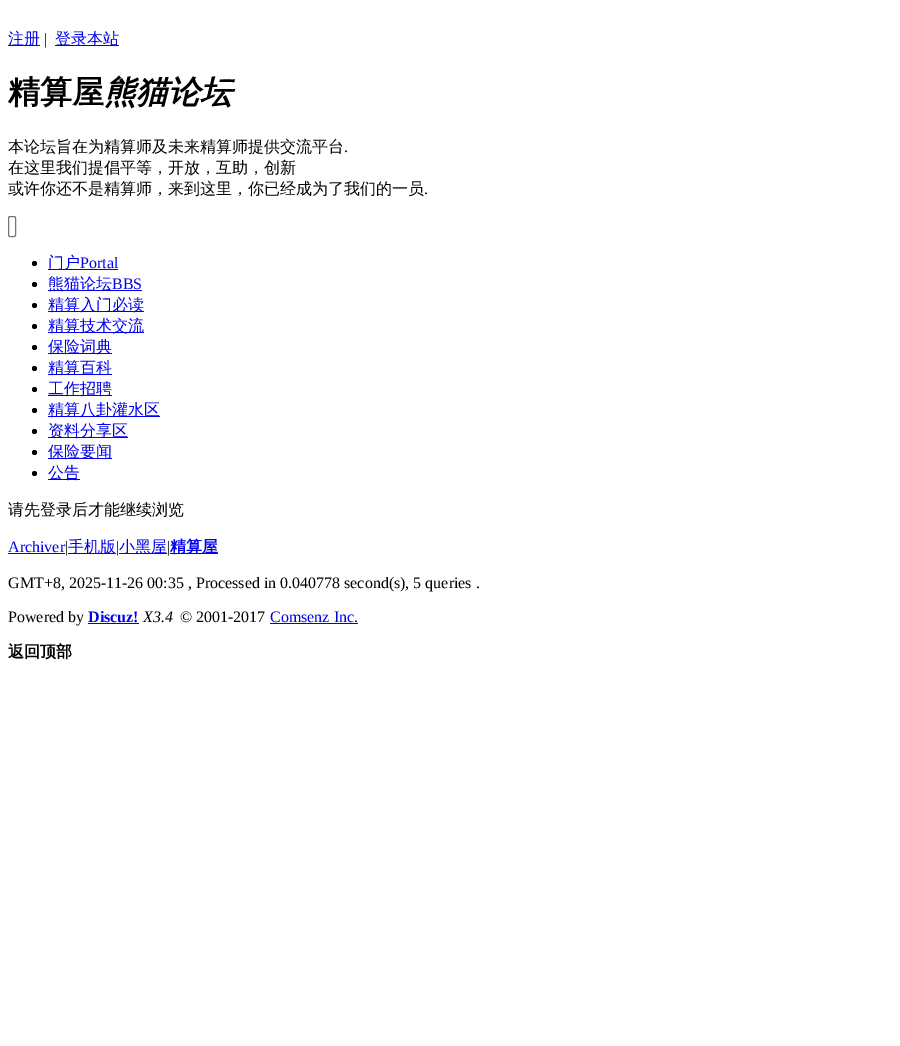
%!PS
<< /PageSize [900 1046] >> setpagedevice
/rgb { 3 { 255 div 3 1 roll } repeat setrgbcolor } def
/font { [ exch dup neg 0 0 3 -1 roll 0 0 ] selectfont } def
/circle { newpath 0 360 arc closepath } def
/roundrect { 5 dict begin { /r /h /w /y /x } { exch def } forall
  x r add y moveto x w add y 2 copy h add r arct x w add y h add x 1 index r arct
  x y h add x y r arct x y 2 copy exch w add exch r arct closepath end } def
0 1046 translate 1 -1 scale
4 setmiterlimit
255 255 255 rgb
0 0 900 1046 rectfill
0 0 238 rgb
8 45 32 1 rectfill
55 45 64 1 rectfill
118 118 118 rgb
8.5 216.5 7 20 1.5 roundrect stroke
0 0 0 rgb
34.5 263.5 2.5 circle fill
0 0 238 rgb
48 269 70 1 rectfill
0 0 0 rgb
34.5 284.5 2.5 circle fill
0 0 238 rgb
48 290 94 1 rectfill
0 0 0 rgb
34.5 305.5 2.5 circle fill
0 0 238 rgb
48 311 96 1 rectfill
0 0 0 rgb
34.5 326.5 2.5 circle fill
0 0 238 rgb
48 332 96 1 rectfill
0 0 0 rgb
34.5 347.5 2.5 circle fill
0 0 238 rgb
48 353 64 1 rectfill
0 0 0 rgb
34.5 368.5 2.5 circle fill
0 0 238 rgb
48 374 64 1 rectfill
0 0 0 rgb
34.5 389.5 2.5 circle fill
0 0 238 rgb
48 395 64 1 rectfill
0 0 0 rgb
34.5 410.5 2.5 circle fill
0 0 238 rgb
48 416 112 1 rectfill
0 0 0 rgb
34.5 431.5 2.5 circle fill
0 0 238 rgb
48 437 80 1 rectfill
0 0 0 rgb
34.5 452.5 2.5 circle fill
0 0 238 rgb
48 458 64 1 rectfill
0 0 0 rgb
34.5 473.5 2.5 circle fill
[
  [48 479 32 1 0 0 238]
  [8 553 57 1 0 0 238]
  [68 553 48 1 0 0 238]
  [119 553 48 1 0 0 238]
  [170 553 48 1 0 0 238]
  [88 623 51 1 0 0 238]
  [270 623 88 1 0 0 238]
] { aload pop rgb rectfill } forall
/WenQuanYiZenHei-Medium 16 font
8 44 moveto (注册) show
/LiberationSerif-Regular 16 font
0 0 0 rgb
44 44 moveto (|) show
/WenQuanYiZenHei-Medium 16 font
0 0 238 rgb
55 44 moveto (登录本站) show
/WenQuanYiZenHei-Bold 32 font
0 0 0 rgb
8 103 moveto (精算屋) show
/WenQuanYiZenHei-BoldItalic 32 font
104 103 moveto (熊猫论坛) show
/WenQuanYiZenHei-Medium 16 font
8 152 moveto (本论坛旨在为精算师及未来精算师提供交流平台) show
/LiberationSerif-Regular 16 font
344 152 moveto (.) show
/WenQuanYiZenHei-Medium 16 font
8 173 moveto (在这里我们提倡平等，开放，互助，创新) show
8 194 moveto (或许你还不是精算师，来到这里，你已经成为了我们的一员) show
/LiberationSerif-Regular 16 font
424 194 moveto (.) show
/WenQuanYiZenHei-Medium 16 font
0 0 238 rgb
48 268 moveto (门户) show
/LiberationSerif-Regular 16 font
80 268 moveto (Portal) show
/WenQuanYiZenHei-Medium 16 font
48 289 moveto (熊猫论坛) show
/LiberationSerif-Regular 16 font
112 289 moveto (BBS) show
/WenQuanYiZenHei-Medium 16 font
[
  [(精算入门必读) 48 310]
  [(精算技术交流) 48 331]
  [(保险词典) 48 352]
  [(精算百科) 48 373]
  [(工作招聘) 48 394]
  [(精算八卦灌水区) 48 415]
  [(资料分享区) 48 436]
  [(保险要闻) 48 457]
  [(公告) 48 478]
] { aload pop moveto show } forall
0 0 0 rgb
8 515 moveto (请先登录后才能继续浏览) show
/LiberationSerif-Regular 16 font
0 0 238 rgb
8 552 moveto (Archiver) show
0 0 0 rgb
65 552 moveto (|) show
/WenQuanYiZenHei-Medium 16 font
0 0 238 rgb
68 552 moveto (手机版) show
/LiberationSerif-Regular 16 font
0 0 0 rgb
116 552 moveto (|) show
/WenQuanYiZenHei-Medium 16 font
0 0 238 rgb
119 552 moveto (小黑屋) show
/LiberationSerif-Regular 16 font
0 0 0 rgb
167 552 moveto (|) show
/WenQuanYiZenHei-Bold 16 font
0 0 238 rgb
170 552 moveto (精算屋) show
/LiberationSerif-Regular 16 font
0 0 0 rgb
8 588 moveto (GMT+8, 2025-11-26 00:35 , Processed in 0.040778 second\(s\), 5 queries .) show
8 622 moveto (Powered by) show
/LiberationSerif-Bold 16 font
0 0 238 rgb
88 622 moveto (Discuz!) show
/LiberationSerif-Italic 16 font
0 0 0 rgb
143 622 moveto (X3.4) show
/LiberationSerif-Regular 16 font
180 622 moveto (© 2001-2017) show
0 0 238 rgb
270 622 moveto (Comsenz Inc.) show
/WenQuanYiZenHei-Bold 16 font
0 0 0 rgb
8 657 moveto (返回顶部) show
showpage
